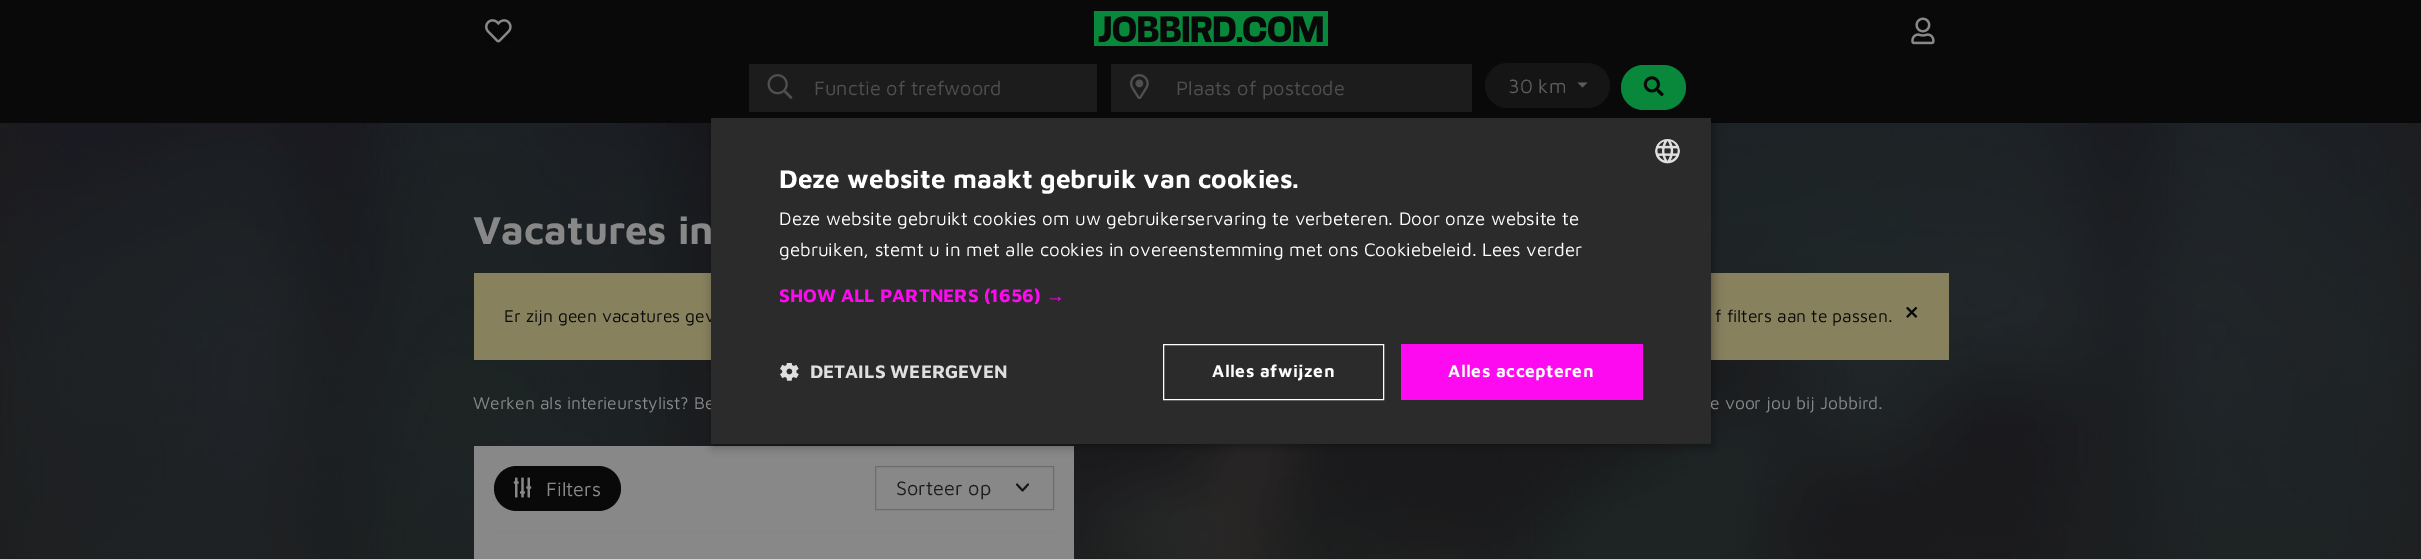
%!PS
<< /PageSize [2421 559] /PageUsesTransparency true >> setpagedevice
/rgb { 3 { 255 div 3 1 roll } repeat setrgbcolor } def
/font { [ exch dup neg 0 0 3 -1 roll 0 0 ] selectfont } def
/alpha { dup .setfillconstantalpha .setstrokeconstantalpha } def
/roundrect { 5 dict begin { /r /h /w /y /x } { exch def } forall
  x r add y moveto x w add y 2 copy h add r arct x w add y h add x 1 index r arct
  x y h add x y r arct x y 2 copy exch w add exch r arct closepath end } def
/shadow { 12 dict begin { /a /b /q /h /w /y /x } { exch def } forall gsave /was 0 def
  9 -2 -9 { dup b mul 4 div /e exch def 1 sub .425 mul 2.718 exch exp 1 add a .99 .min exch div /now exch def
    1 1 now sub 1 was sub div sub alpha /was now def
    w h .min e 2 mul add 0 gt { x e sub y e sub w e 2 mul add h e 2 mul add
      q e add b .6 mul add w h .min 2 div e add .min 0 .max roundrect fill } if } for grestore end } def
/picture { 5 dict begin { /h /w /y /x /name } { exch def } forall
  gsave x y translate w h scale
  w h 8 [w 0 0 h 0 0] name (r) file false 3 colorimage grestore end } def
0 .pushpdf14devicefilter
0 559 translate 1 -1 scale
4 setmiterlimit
255 255 255 rgb
0 0 2421 559 rectfill
(img/1.rgb) 0 123 2421 436 picture
9 9 9 rgb
0 0 2421 123 rectfill
(img/2.rgb) 485 19 27 24 picture
(img/3.rgb) 1094 11 234 35 picture
(img/4.rgb) 1911 17 24 28 picture
28 28 28 rgb
749 64 348 48 rectfill
(img/5.rgb) 767 74 26 25 picture
1111 64 361 48 rectfill
(img/6.rgb) 1130 74 19 25 picture
21 21 21 rgb
1485 63 125 45 22.5 roundrect fill
92 92 92 rgb
1577.5 82.5 moveto 1587.5 82.5 lineto 1582.5 87.5 lineto closepath fill
9 136 59 rgb
1621 65 65 45 22.5 roundrect fill
(img/7.rgb) 1643 76 21 21 picture
136 129 94 rgb
474 273 1475 87 rectfill
(img/8.rgb) 1906 306 12 12 picture
136 136 136 rgb
474 446 600 113 rectfill
9 9 9 rgb
494 466 127 45 22.5 roundrect fill
(img/9.rgb) 513 477 19 21 picture
22 22 22 rgb
1.9 setlinewidth
1 setlinecap
1 setlinejoin
1017 484.5 moveto 1022.5 490.5 lineto 1028 484.5 lineto stroke
108 108 111 rgb
1 setlinewidth
0 setlinecap
0 setlinejoin
875.5 466.5 178 43 rectstroke
133 133 133 rgb
494 531 560 1 rectfill
0 0 0 rgb
713 120 1000 326 0 5 0.35 shadow
/MavenPro-Regular 20 font
79 79 79 rgb
814 95 moveto (Functie of trefwoord) show
1176 95 moveto (Plaats of postcode) show
92 92 92 rgb
1508 93 moveto (30 km) show
/MavenPro-Bold 40 font
136 136 136 rgb
473 244 moveto (Vacatures in) show
/MavenPro-Regular 17.5 font
9 9 9 rgb
504 322 moveto (Er zijn geen vacatures gev) show
1715 322 moveto (f filters aan te passen.) show
136 136 136 rgb
473 409 moveto (Werken als interieurstylist? Be) show
1710 409 moveto (e voor jou bij Jobbird.) show
/MavenPro-Regular 20 font
546 496 moveto (Filters) show
29 29 29 rgb
896 495 moveto (Sorteer op) show
43 43 44 rgb
711 118 1000 326 rectfill
(img/10.rgb) 1655 139 25 25 picture
/MavenPro-Bold 26.25 font
255 255 255 rgb
779 188 moveto (Deze website maakt gebruik van cookies.) show
/MavenPro-Regular 18.75 font
779 225 moveto (Deze website gebruikt cookies om uw gebruikerservaring te verbeteren. Door onze website te) show
779 256 moveto (gebruiken, stemt u in met alle cookies in overeenstemming met ons Cookiebeleid. Lees verder) show
/MavenPro-Bold 18.75 font
254 10 240 rgb
779 302 moveto (SHOW ALL PARTNERS \(1656\)) show
/LiberationSans-Bold 18.75 font
1046 302 moveto (→) show
(img/11.rgb) 780 363 19 18 picture
/MavenPro-Bold 18.75 font
223 223 223 rgb
810 378 moveto (DETAILS WEERGEVEN) show
255 255 255 rgb
1163.5 344.5 220 55 rectstroke
/MavenPro-Bold 17.5 font
1212 377 moveto 0.5 0 (Alles afwijzen) ashow
254 10 240 rgb
1401 344 242 56 rectfill
255 255 255 rgb
1448 377 moveto 0.5 0 (Alles accepteren) ashow
.poppdf14devicefilter showpage
